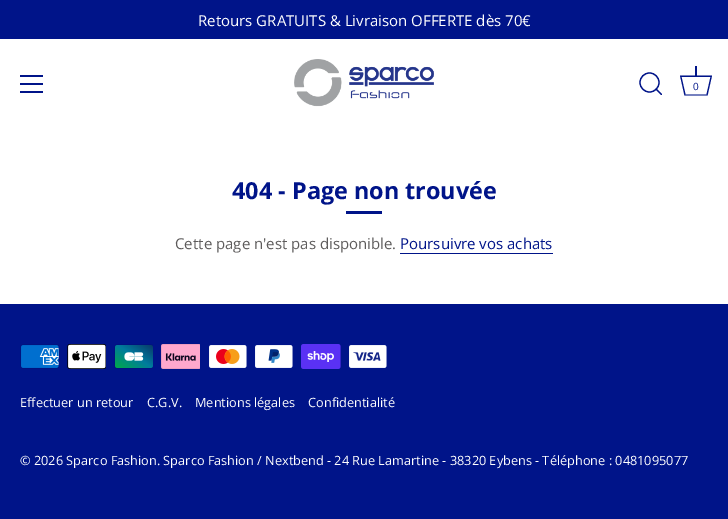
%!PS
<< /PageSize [728 519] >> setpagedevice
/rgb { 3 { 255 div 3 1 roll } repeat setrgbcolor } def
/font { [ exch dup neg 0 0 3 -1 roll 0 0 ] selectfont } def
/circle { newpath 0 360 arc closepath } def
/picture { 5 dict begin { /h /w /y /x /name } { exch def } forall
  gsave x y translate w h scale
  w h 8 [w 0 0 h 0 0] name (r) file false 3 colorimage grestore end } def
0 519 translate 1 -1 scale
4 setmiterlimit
255 255 255 rgb
0 0 728 519 rectfill
[
  [0 0 728 39 0 20 137]
  [20 75 23 2 0 20 137]
  [20 83 23 2 0 20 137]
  [20 91 23 2 0 20 137]
] { aload pop rgb rectfill } forall
(img/1.rgb) 294 59 140 48 picture
1.2 setlinewidth
649.5 82.5 9.5 circle stroke
1 setlinecap
1 setlinejoin
661.5 94.5 moveto 656 89 lineto stroke
710.5 77 moveto 706.5 94.5 lineto 685.5 94.5 lineto 681.5 77 lineto 710.5 77 lineto 712 75.5 moveto 680 75.5 lineto 684.5 95.5 lineto 707.5 95.5 lineto closepath fill
[
  [695 66 2 10 0 20 137]
  [346 211 36 3 0 20 137]
  [400 253 153 1 0 20 137]
  [0 304 728 215 0 20 137]
] { aload pop rgb rectfill } forall
(img/2.rgb) 20 344 40 25 picture
(img/3.rgb) 67 344 39 25 picture
(img/4.rgb) 114 344 39 25 picture
(img/5.rgb) 161 344 39 25 picture
(img/6.rgb) 209 345 38 23 picture
(img/7.rgb) 255 345 38 23 picture
(img/8.rgb) 301 344 40 25 picture
(img/9.rgb) 349 345 38 23 picture
/OpenSans-Regular 15 font
255 255 255 rgb
198 26 moveto (Retours GRATUITS & Livraison OFFERTE dès 70€) show
/OpenSans-Regular 10 font
0 20 137 rgb
693 90 moveto (0) show
/OpenSans-Bold 23.4 font
232 199 moveto (404 - Page non trouvée) show
/OpenSans-Regular 15 font
94 92 92 rgb
175 249 moveto (Cette page n'est pas disponible.) show
0 20 137 rgb
400 249 moveto (Poursuivre vos achats) show
/OpenSans-Regular 12.75 font
255 255 255 rgb
[
  [(Effectuer un retour) 20 407]
  [(C.G.V.) 147 407]
  [(Mentions légales) 195 407]
  [(Confidentialité) 308 407]
  [(© 2026 Sparco Fashion. Sparco Fashion / Nextbend - 24 Rue Lamartine - 38320 Eybens - Téléphone : 0481095077) 20 465]
] { aload pop moveto show } forall
showpage
